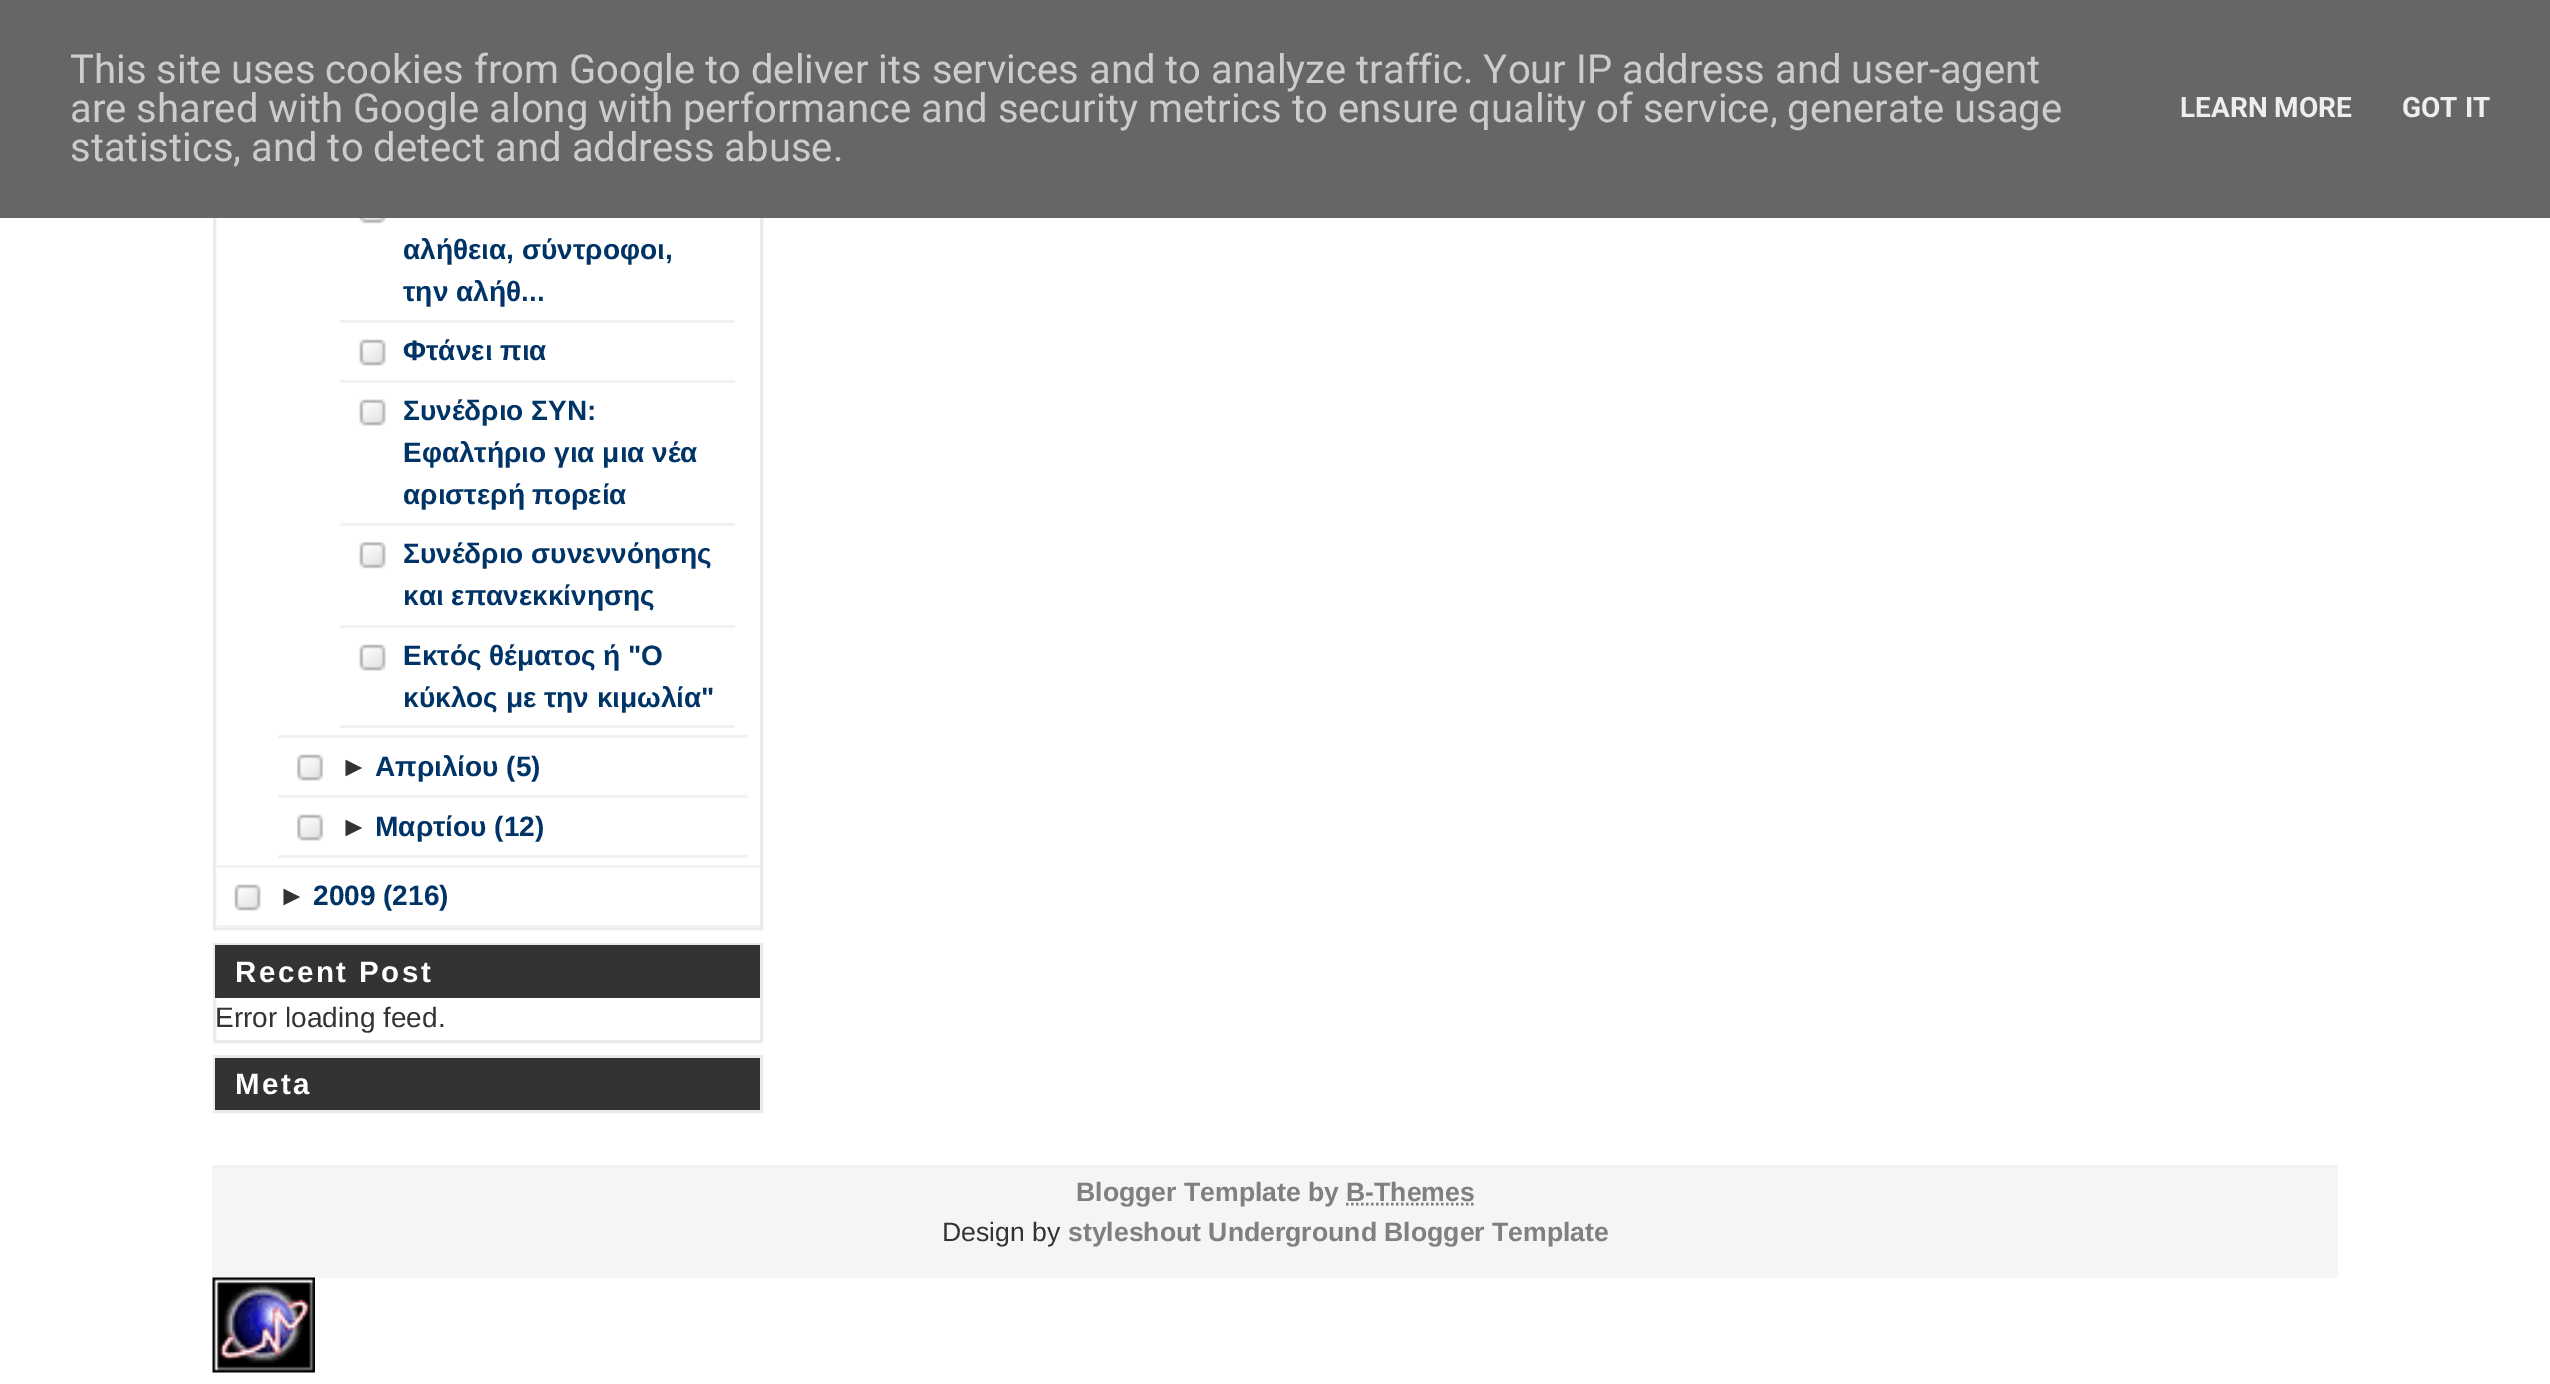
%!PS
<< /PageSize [2550 1384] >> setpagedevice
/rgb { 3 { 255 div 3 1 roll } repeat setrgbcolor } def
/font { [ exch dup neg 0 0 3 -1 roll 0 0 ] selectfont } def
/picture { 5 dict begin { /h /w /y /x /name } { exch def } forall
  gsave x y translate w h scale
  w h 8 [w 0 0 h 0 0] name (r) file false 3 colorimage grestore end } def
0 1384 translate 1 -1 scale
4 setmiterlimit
255 255 255 rgb
0 0 2550 1384 rectfill
235 235 235 rgb
3 setlinewidth
214.5 -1.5 547 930 rectstroke
[
  [0 0 2550 218 102 102 102]
  [215 865 545 3 242 242 242]
  [278 735 470 3 242 242 242]
] { aload pop rgb rectfill } forall
(img/1.rgb) 359 218 27 6 picture
340 320 395 3 rectfill
(img/2.rgb) 359 339 27 27 picture
340 380 395 3 rectfill
(img/2.rgb) 359 399 27 27 picture
340 523 395 3 rectfill
(img/3.rgb) 359 541 27 28 picture
340 625 395 3 rectfill
(img/2.rgb) 359 644 27 27 picture
340 725 395 3 rectfill
(img/4.rgb) 296 754 28 27 picture
278 795 470 3 rectfill
(img/4.rgb) 296 814 28 27 picture
278 855 470 3 rectfill
(img/5.rgb) 234 884 27 27 picture
215 925 545 3 rectfill
235 235 235 rgb
214.5 944.5 547 97 rectstroke
51 51 51 rgb
215 945 545 53 rectfill
235 235 235 rgb
214.5 1056.5 547 55 rectstroke
[
  [215 1058 545 52 51 51 51]
  [212 1167 2126 111 245 245 245]
  [213 1165 2125 3 242 242 242]
] { aload pop rgb rectfill } forall
128 128 128 rgb
2.5 setlinewidth
[2.5 2.5] 0 setdash
1346 1204 moveto 1474.5 1204 lineto stroke
(img/6.rgb) 212 1277 103 96 picture
/Roboto-Regular 40 font
204 204 204 rgb
[
  [(This site uses cookies from Google to deliver its services and to analyze traffic. Your IP address and user-agent) 70 83]
  [(are shared with Google along with performance and security metrics to ensure quality of service, generate usage) 70 122]
  [(statistics, and to detect and address abuse.) 70 161]
] { aload pop moveto show } forall
/Roboto-Bold 28 font
238 238 238 rgb
2180 117 moveto (LEARN MORE) show
2402 117 moveto (GOT IT) show
/LiberationSans-Bold 28 font
0 51 102 rgb
[
  [(αλήθεια, σύντροφοι,) 403 259]
  [(την αλήθ...) 403 301]
  [(Φτάνει πια) 403 360]
  [(Συνέδριο ΣΥΝ:) 403 420]
  [(Εφαλτήριο για μια νέα) 403 462]
  [(αριστερή πορεία) 403 504]
  [(Συνέδριο συνεννόησης) 403 563]
  [(και επανεκκίνησης) 403 605]
  [(Εκτός θέματος ή "Ο) 403 665]
  [(κύκλος με την κιμωλία") 403 707]
] { aload pop moveto show } forall
51 51 51 rgb
340 776 moveto (►) show
0 51 102 rgb
375 776 moveto (Απριλίου \(5\)) show
51 51 51 rgb
340 836 moveto (►) show
0 51 102 rgb
375 836 moveto (Μαρτίου \(12\)) show
51 51 51 rgb
278 905 moveto (►) show
0 51 102 rgb
313 905 moveto (2009 \(216\)) show
/LiberationSans-Bold 29.5 font
255 255 255 rgb
235 982 moveto 2.5 0 (Recent Post) ashow
/LiberationSans-Regular 28 font
51 51 51 rgb
215 1027 moveto (Error loading feed.) show
/LiberationSans-Bold 29.5 font
255 255 255 rgb
235 1094 moveto 2.5 0 (Meta) ashow
/LiberationSans-Bold 26.6 font
128 128 128 rgb
1076 1201 moveto (Blogger Template by) show
1346 1201 moveto (B-Themes) show
/LiberationSans-Regular 26.6 font
51 51 51 rgb
942 1241 moveto (Design by) show
/LiberationSans-Bold 26.6 font
128 128 128 rgb
1068 1241 moveto (styleshout Underground Blogger Template) show
showpage
